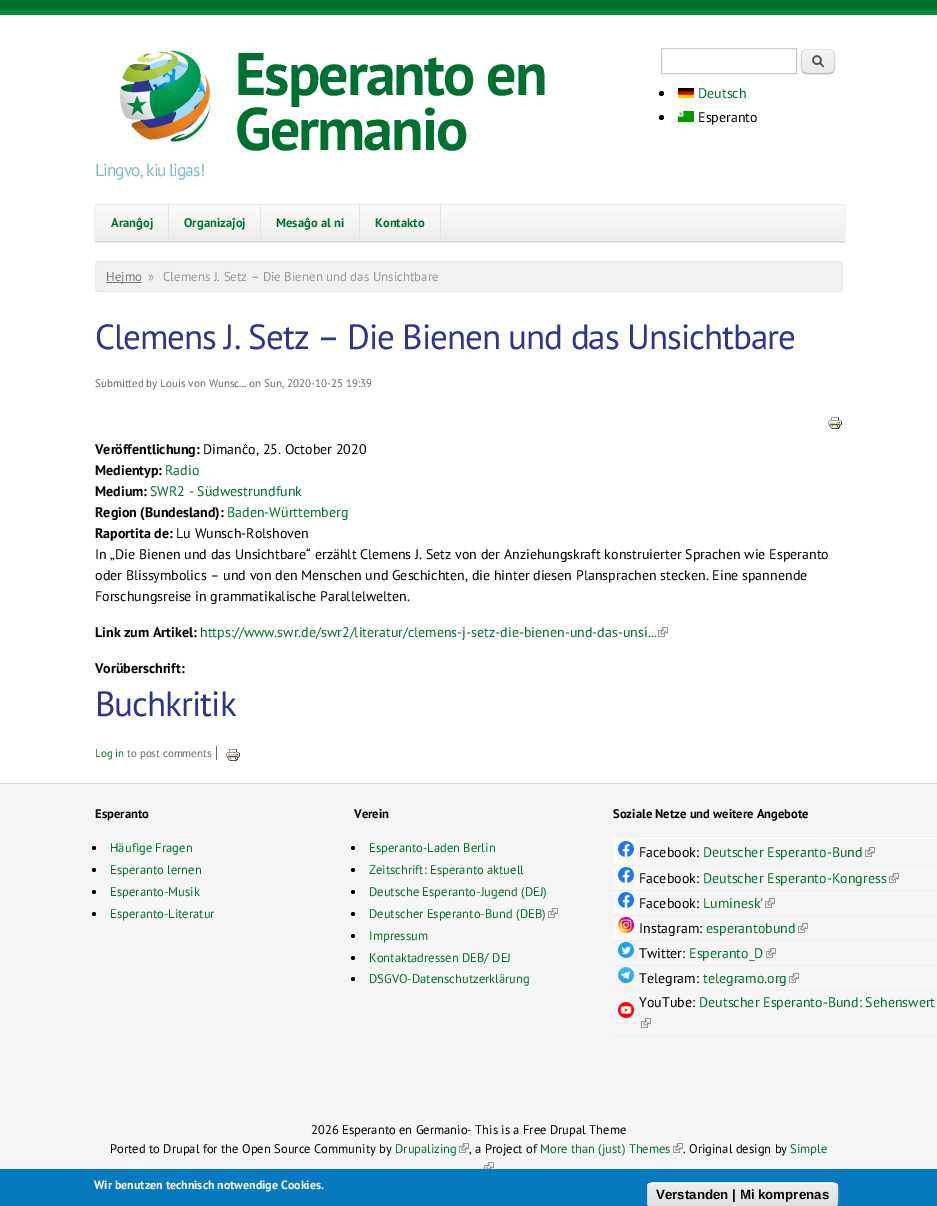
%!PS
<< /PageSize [937 1206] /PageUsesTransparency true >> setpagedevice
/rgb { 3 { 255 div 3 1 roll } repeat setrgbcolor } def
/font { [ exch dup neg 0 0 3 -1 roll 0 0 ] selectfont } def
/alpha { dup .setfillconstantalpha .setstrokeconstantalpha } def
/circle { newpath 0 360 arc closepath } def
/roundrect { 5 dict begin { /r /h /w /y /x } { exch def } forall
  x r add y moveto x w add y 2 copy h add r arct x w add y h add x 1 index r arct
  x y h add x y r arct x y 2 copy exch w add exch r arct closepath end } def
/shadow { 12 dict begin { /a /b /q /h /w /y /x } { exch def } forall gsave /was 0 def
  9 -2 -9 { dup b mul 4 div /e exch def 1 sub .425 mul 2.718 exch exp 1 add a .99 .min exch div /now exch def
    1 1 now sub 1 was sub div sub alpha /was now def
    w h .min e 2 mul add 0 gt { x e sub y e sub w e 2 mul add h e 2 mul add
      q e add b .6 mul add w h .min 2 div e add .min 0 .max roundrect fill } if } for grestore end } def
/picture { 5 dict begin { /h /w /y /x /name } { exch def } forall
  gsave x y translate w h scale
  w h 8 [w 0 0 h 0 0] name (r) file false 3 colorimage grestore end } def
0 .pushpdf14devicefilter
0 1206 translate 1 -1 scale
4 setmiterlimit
255 255 255 rgb
0 0 937 1206 rectfill
0 112 48 rgb
0 0 937 10 rectfill
0 144 48 rgb
0 10 937 5 rectfill
(img/1.rgb) 119 50 92 92 picture
204 204 204 rgb
661.5 48.5 135 25 rectstroke
(img/2.rgb) 801 50 34 24 picture
255 255 255 rgb
807 51 moveto 825 51 lineto 832.5 51 834 52.5 834 57 curveto 834 50 831.5 50 825.5 50 curveto 810.5 50 lineto 804 50 802 50.5 802 57 curveto 802 54 803 51 807 51 curveto closepath 834 67.5 moveto 834 69 lineto closepath 802 69 moveto 802 68 lineto closepath eofill
228 228 228 rgb
803 51 moveto 804 50 805.5 49.5 807 49.5 curveto 829 49.5 lineto 830.5 49.5 832 50 833 51 curveto stroke
210 210 210 rgb
833 51 moveto 835.5 53.5 834.5 58.5 834.5 61.5 curveto 834.5 64.5 835.5 69.5 833 72 curveto stroke
180 180 180 rgb
833 72 moveto 832 73 830.5 73.5 829 73.5 curveto 807 73.5 lineto 805.5 73.5 804 73 803 72 curveto stroke
210 210 210 rgb
803 72 moveto 800.5 69.5 801.5 64.5 801.5 61.5 curveto 801.5 58.5 800.5 53.5 803 51 curveto stroke
0 0 0 rgb
661.5 93.5 2.5 circle fill
(img/3.rgb) 678 88 16 10 picture
661.5 117.5 2.5 circle fill
(img/4.rgb) 678 111 16 11 picture
95 205 750 37 0 0.5 0.2 shadow
gsave 96 205 moveto 844 205 lineto 844 240 lineto 96 240 lineto closepath clip newpath
<< /ShadingType 2 /ColorSpace /DeviceRGB /Coords [470 205 470 240] /Extend [true true] /Function << /FunctionType 2 /Domain [0 1] /C0 [0.988 0.988 0.988] /C1 [0.925 0.925 0.925] /N 1 >> >> shfill grestore
[
  [95 204 750 1 234 234 234]
  [844 204 1 37 245 245 245]
  [95 240 750 1 245 245 245]
  [95 204 1 37 245 245 245]
  [168 205 1 35 227 227 227]
  [260 205 1 35 227 227 227]
  [359 205 1 35 227 227 227]
  [440 205 1 35 227 227 227]
] { aload pop rgb rectfill } forall
241 241 241 rgb
95.5 261.5 747 30 3.5 roundrect gsave fill grestore
233 233 233 rgb
stroke
121 121 121 rgb
106 282 36 1 rectfill
(img/5.rgb) 828 417 14 12 picture
(img/6.rgb) 658 627 10 10 picture
102 102 102 rgb
216 746 1 14 rectfill
(img/5.rgb) 226 749 14 12 picture
245 245 245 rgb
0 784 937 385 rectfill
214 214 214 rgb
0 783 937 1 rectfill
0 0 0 rgb
94 848 2 circle fill
94 870 2 circle fill
94 892 2 circle fill
94 914 2 circle fill
353 848 2 circle fill
353 870 2 circle fill
353 892 2 circle fill
353 914 2 circle fill
(img/7.rgb) 548 908 10 10 picture
353 936 2 circle fill
353 958 2 circle fill
353 979 2 circle fill
[
  [613 839 25 26 249 249 249]
  [612 838 325 1 255 255 255]
  [612 865 325 1 237 237 237]
  [617 840 18 18 255 255 255]
] { aload pop rgb rectfill } forall
(img/8.rgb) 618 841 16 16 picture
(img/7.rgb) 865 847 10 10 picture
249 249 249 rgb
613 866 25 24 rectfill
237 237 237 rgb
612 890 325 1 rectfill
(img/9.rgb) 618 867 16 16 picture
(img/7.rgb) 889 873 10 10 picture
249 249 249 rgb
613 891 25 24 rectfill
237 237 237 rgb
612 915 325 1 rectfill
(img/9.rgb) 618 892 16 16 picture
(img/7.rgb) 765 898 10 10 picture
249 249 249 rgb
613 916 25 24 rectfill
237 237 237 rgb
612 940 325 1 rectfill
(img/10.rgb) 618 917 16 16 picture
(img/7.rgb) 798 923 10 10 picture
612 965 325 1 rectfill
(img/11.rgb) 618 942 16 16 picture
(img/7.rgb) 766 948 10 10 picture
612 990 325 1 rectfill
(img/12.rgb) 618 967 16 16 picture
(img/7.rgb) 789 973 10 10 picture
612 1035 325 1 rectfill
(img/13.rgb) 618 1002 16 16 picture
(img/7.rgb) 641 1018 10 10 picture
(img/7.rgb) 459 1143 10 10 picture
(img/7.rgb) 673 1143 10 10 picture
(img/14.rgb) 484 1162 10 7 picture
7 121 191 rgb
0 1169 937 37 rectfill
gsave
647 1182 191 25 6 roundrect clip newpath
gsave 647 1183 moveto 838 1183 lineto 838 1206 lineto 647 1206 lineto closepath clip newpath
<< /ShadingType 2 /ColorSpace /DeviceRGB /Coords [743 1183 743 1206] /Extend [true true] /Function << /FunctionType 3 /Domain [0 1] /Functions [<< /FunctionType 2 /Domain [0 1] /C0 [0.929 0.929 0.929] /C1 [0.929 0.929 0.929] /N 1 >> << /FunctionType 2 /Domain [0 1] /C0 [0.929 0.929 0.929] /C1 [0.875 0.875 0.875] /N 1 >>] /Bounds [0.05] /Encode [0 1 0 1] >> >> shfill grestore
grestore
255 255 255 rgb
653 1184 moveto 833 1184 lineto 836 1185 837 1186 837 1189 curveto 837 1188 lineto 837 1185 835 1183 832 1183 curveto 653 1183 lineto 650 1183 648 1185 648 1188 curveto 648 1190 lineto 648 1187 649 1184 653 1184 curveto closepath fill
220 220 220 rgb
647.5 1182.5 190 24 5.5 roundrect stroke
/PTSans-Bold 60 font
0 112 48 rgb
235 95 moveto -2 0 (Esperanto en) ashow
235 150 moveto -2 0 (Germanio) ashow
/PTSans-Regular 17.5 font
126 187 210 rgb
95 176 moveto -1 0 (Lingvo, kiu ligas!) ashow
/PTSans-Regular 14 font
0 112 48 rgb
698 98 moveto (Deutsch) show
0 0 0 rgb
698 122 moveto (Esperanto) show
/PTSans-Bold 12.6 font
0 112 48 rgb
[
  [(Aranĝoj) 111 227]
  [(Organizaĵoj) 184 227]
  [(Mesaĝo al ni) 276 227]
  [(Kontakto) 375 227]
] { aload pop moveto show } forall
/PTSans-Regular 12.9 font
121 121 121 rgb
106 281 moveto (Hejmo) show
153 153 153 rgb
148 281 moveto (») show
163 281 moveto (Clemens J. Setz – Die Bienen und das Unsichtbare) show
/PTSans-Regular 35 font
46 53 140 rgb
95 349 moveto -1 0 (Clemens J. Setz – Die Bienen und das Unsichtbare) ashow
/PTSans-Regular 11 font
102 102 102 rgb
95 387 moveto (Submitted by Louis von Wunsc... on Sun, 2020-10-25 19:39) show
/PTSans-Bold 14 font
0 0 0 rgb
95 454 moveto (Veröffentlichung:) show
/PTSans-Regular 14 font
203 454 moveto (Dimanĉo, 25. October 2020) show
/PTSans-Bold 14 font
95 475 moveto (Medientyp:) show
/PTSans-Regular 14 font
0 112 48 rgb
165 475 moveto (Radio) show
/PTSans-Bold 14 font
0 0 0 rgb
95 496 moveto (Medium:) show
/PTSans-Regular 14 font
0 112 48 rgb
150 496 moveto (SWR2 - Südwestrundfunk) show
/PTSans-Bold 14 font
0 0 0 rgb
95 517 moveto (Region \(Bundesland\):) show
/PTSans-Regular 14 font
0 112 48 rgb
227 517 moveto (Baden-Württemberg) show
/PTSans-Bold 14 font
0 0 0 rgb
95 538 moveto (Raportita de:) show
/PTSans-Regular 14 font
[
  [(Lu Wunsch-Rolshoven) 176 538]
  [(In „Die Bienen und das Unsichtbare“ erzählt Clemens J. Setz von der Anziehungskraft konstruierter Sprachen wie Esperanto) 95 559]
  [(oder Blissymbolics – und von den Menschen und Geschichten, die hinter diesen Plansprachen stecken. Eine spannende) 95 580]
  [(Forschungsreise in grammatikalische Parallelwelten.) 95 601]
] { aload pop moveto show } forall
/PTSans-Bold 14 font
95 637 moveto (Link zum Artikel:) show
/PTSans-Regular 14 font
0 112 48 rgb
200 637 moveto (https://www.swr.de/swr2/literatur/clemens-j-setz-die-bienen-und-das-unsi...) show
/PTSans-Bold 14 font
0 0 0 rgb
95 673 moveto (Vorüberschrift:) show
/PTSans-Regular 35 font
46 53 140 rgb
95 716 moveto -1 0 (Buchkritik) ashow
/PTSans-Regular 11 font
0 112 48 rgb
95 757 moveto (Log in) show
102 102 102 rgb
127 757 moveto (to post comments) show
/PTSans-Bold 12.6 font
0 0 0 rgb
95 818 moveto (Esperanto) show
/PTSans-Regular 12.6 font
0 112 48 rgb
[
  [(Häufige Fragen) 110 852]
  [(Esperanto lernen) 110 874]
  [(Esperanto-Musik) 110 896]
  [(Esperanto-Literatur) 110 918]
] { aload pop moveto show } forall
/PTSans-Bold 12.6 font
0 0 0 rgb
354 818 moveto (Verein) show
/PTSans-Regular 12.6 font
0 112 48 rgb
[
  [(Esperanto-Laden Berlin) 369 852]
  [(Zeitschrift: Esperanto aktuell) 369 874]
  [(Deutsche Esperanto-Jugend \(DEJ\)) 369 896]
  [(Deutscher Esperanto-Bund \(DEB\)) 369 918]
  [(Impressum) 369 940]
  [(Kontaktadressen DEB/ DEJ) 369 962]
  [(DSGVO-Datenschutzerklärung) 369 983]
] { aload pop moveto show } forall
/PTSans-Bold 12.6 font
0 0 0 rgb
613 818 moveto (Soziale Netze und weitere Angebote) show
/PTSans-Regular 14 font
639 857 moveto (Facebook:) show
0 112 48 rgb
703 857 moveto (Deutscher Esperanto-Bund) show
0 0 0 rgb
639 883 moveto (Facebook:) show
0 112 48 rgb
703 883 moveto (Deutscher Esperanto-Kongress) show
0 0 0 rgb
639 908 moveto (Facebook:) show
0 112 48 rgb
703 908 moveto (Luminesk') show
0 0 0 rgb
639 933 moveto (Instagram:) show
0 112 48 rgb
706 933 moveto (esperantobund) show
0 0 0 rgb
639 958 moveto (Twitter:) show
0 112 48 rgb
689 958 moveto (Esperanto_D) show
0 0 0 rgb
639 983 moveto (Telegram:) show
0 112 48 rgb
703 983 moveto (telegramo.org) show
0 0 0 rgb
639 1007 moveto (YouTube:) show
0 112 48 rgb
699 1007 moveto (Deutscher Esperanto-Bund: Sehenswert) show
/PTSans-Regular 12.6 font
0 0 0 rgb
311 1134 moveto (2026 Esperanto en Germanio- This is a Free Drupal Theme) show
110 1153 moveto (Ported to Drupal for the Open Source Community by) show
0 112 48 rgb
395 1153 moveto (Drupalizing) show
0 0 0 rgb
469 1153 moveto (, a Project of) show
0 112 48 rgb
540 1153 moveto (More than \(just\) Themes) show
0 0 0 rgb
683 1153 moveto (. Original design by) show
0 112 48 rgb
790 1153 moveto (Simple) show
/PTSans-Bold 12 font
255 255 255 rgb
94 1189 moveto (Wir benutzen technisch notwendige Cookies.) show
/LiberationSans-Bold 13.3 font
0 0 0 rgb
656 1199 moveto (Verstanden | Mi komprenas) show
.poppdf14devicefilter showpage
